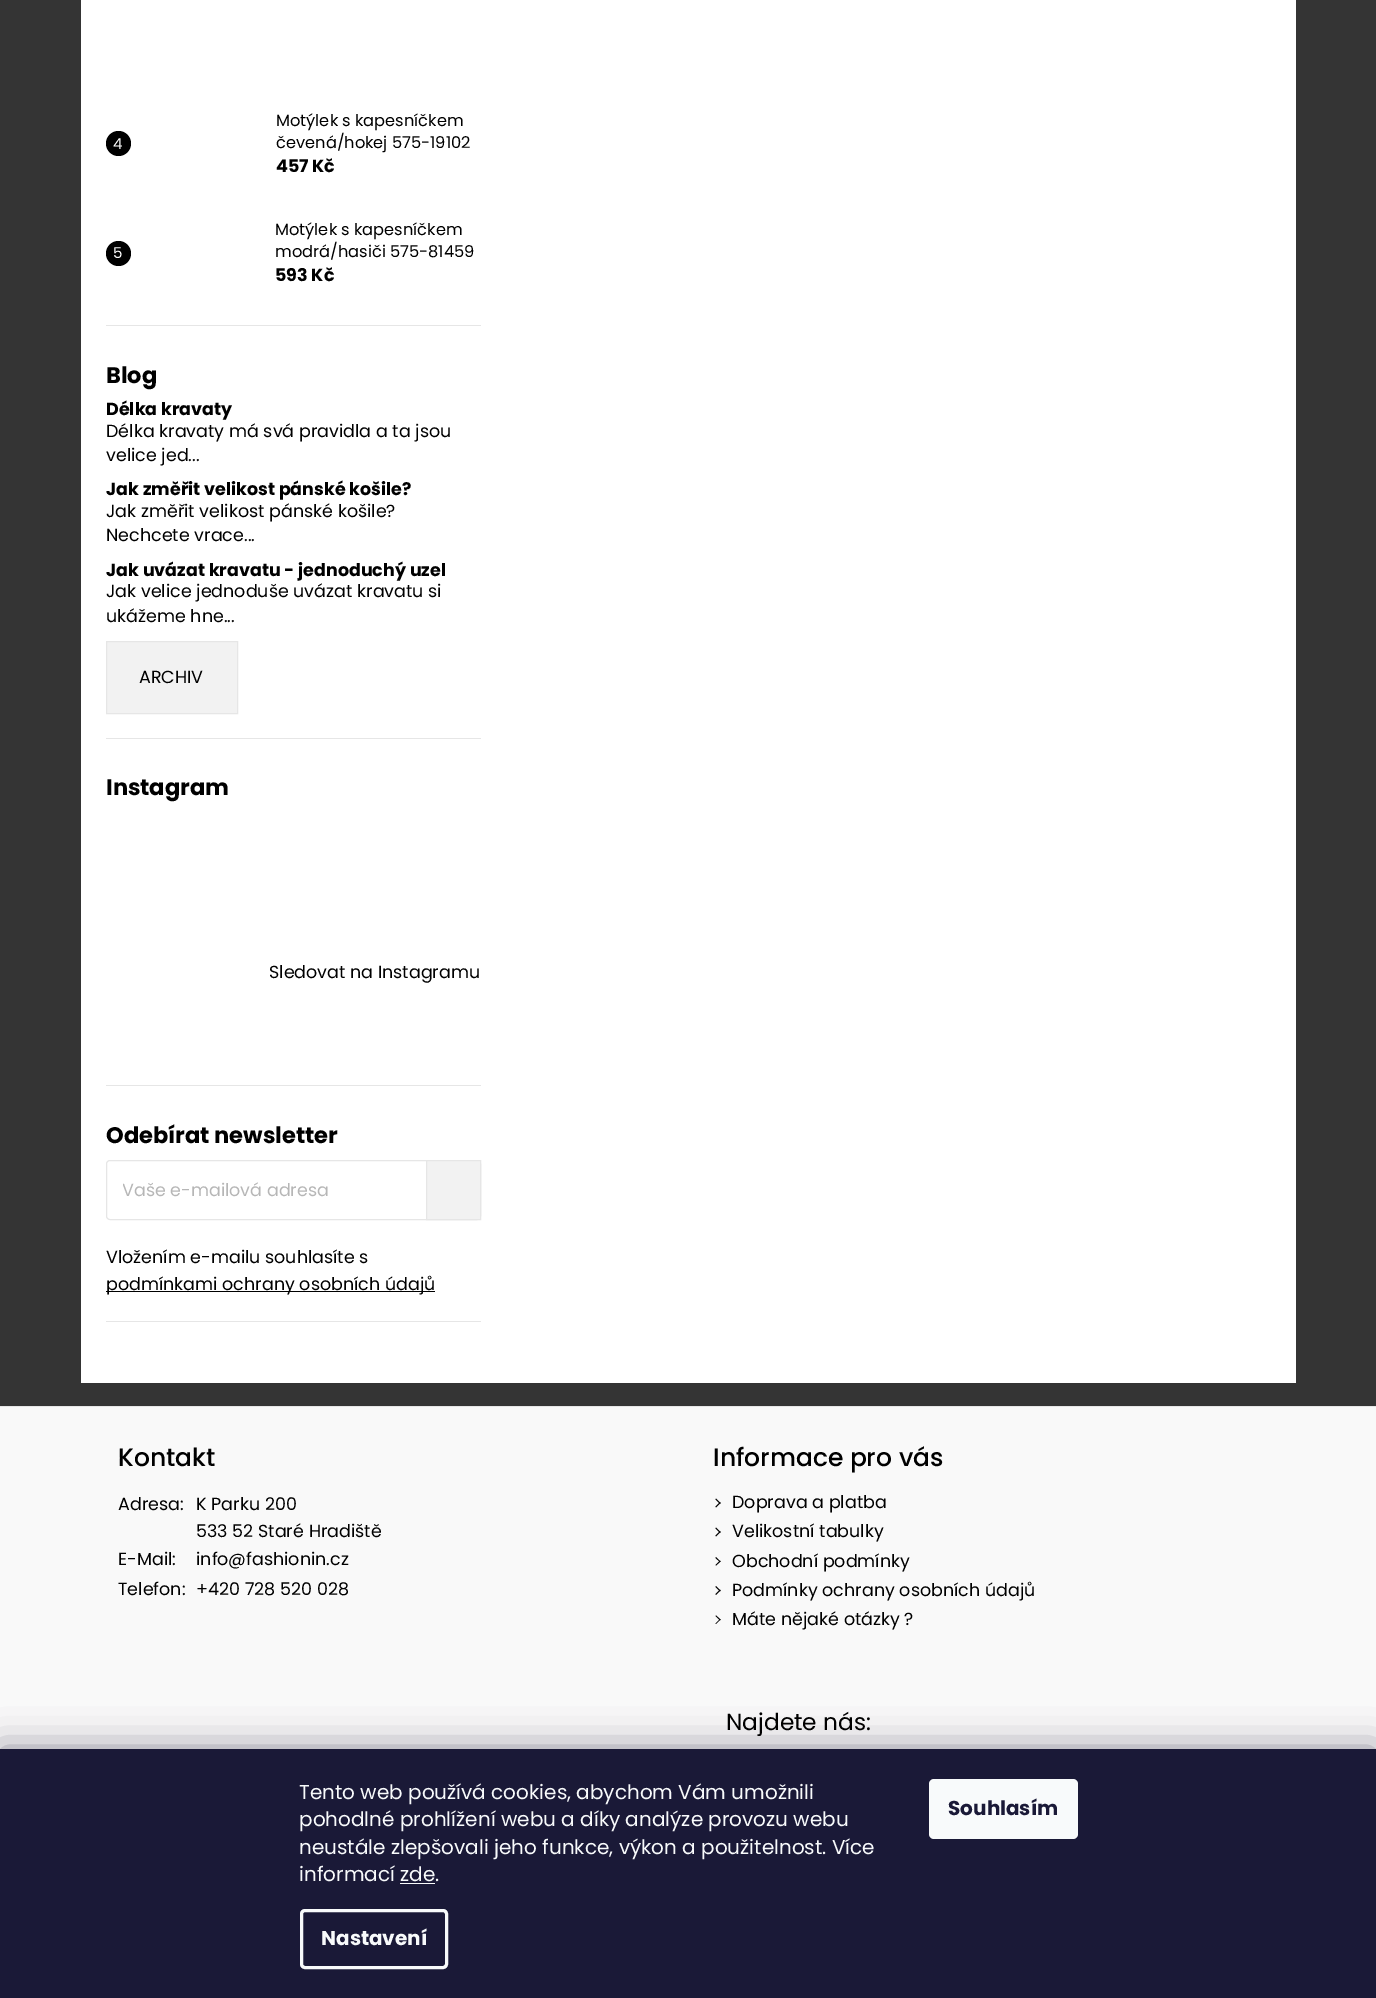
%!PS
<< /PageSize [1376 1998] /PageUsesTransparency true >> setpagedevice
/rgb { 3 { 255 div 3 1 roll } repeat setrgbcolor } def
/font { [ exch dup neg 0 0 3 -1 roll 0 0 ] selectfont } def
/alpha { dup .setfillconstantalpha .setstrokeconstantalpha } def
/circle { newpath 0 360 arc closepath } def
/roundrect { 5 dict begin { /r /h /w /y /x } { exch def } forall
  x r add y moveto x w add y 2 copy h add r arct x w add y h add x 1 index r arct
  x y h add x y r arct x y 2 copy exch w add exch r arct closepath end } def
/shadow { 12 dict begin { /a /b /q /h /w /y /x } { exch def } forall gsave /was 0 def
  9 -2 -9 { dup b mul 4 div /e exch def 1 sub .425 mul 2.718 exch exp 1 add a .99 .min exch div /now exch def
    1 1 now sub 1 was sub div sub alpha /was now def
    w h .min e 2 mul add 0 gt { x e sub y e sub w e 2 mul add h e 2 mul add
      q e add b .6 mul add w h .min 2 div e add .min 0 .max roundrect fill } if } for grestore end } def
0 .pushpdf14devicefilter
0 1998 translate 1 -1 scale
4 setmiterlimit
52 52 52 rgb
0 0 1376 1998 rectfill
255 255 255 rgb
81 0 1215 1383 rectfill
0 0 0 rgb
118.5 143.5 12.5 circle fill
118.5 253.5 12.5 circle fill
230 230 230 rgb
106 325 375 1 rectfill
242 242 242 rgb
106.5 641.5 moveto 237.5 641.5 lineto 237.5 713.5 lineto 106.5 713.5 lineto closepath gsave fill grestore
230 230 230 rgb
stroke
106 738 375 1 rectfill
106 1085 375 1 rectfill
106.5 1160.5 374 59 3.5 roundrect stroke
242 242 242 rgb
426.5 1160.5 moveto 480.5 1160.5 lineto 480.5 1219.5 lineto 426.5 1219.5 lineto closepath gsave fill grestore
230 230 230 rgb
stroke
[
  [106 1291 329 1 0 0 0]
  [106 1321 375 1 230 230 230]
  [0 1407 1376 342 249 249 249]
  [0 1406 1376 1 230 230 230]
] { aload pop rgb rectfill } forall
0 0 0 rgb
715.5 1499.5 moveto 716 1498.5 lineto 720.5 1503 lineto 720 1504 lineto closepath fill
715.5 1506.5 moveto 720 1502 lineto 720.5 1503 lineto 716 1507.5 lineto closepath fill
715.5 1528.5 moveto 716 1527.5 lineto 720.5 1532 lineto 720 1533 lineto closepath fill
715.5 1535.5 moveto 720 1531 lineto 720.5 1532 lineto 716 1536.5 lineto closepath fill
715.5 1558 moveto 716 1557 lineto 720.5 1561.5 lineto 720 1562 lineto closepath fill
715.5 1565 moveto 720 1560.5 lineto 720.5 1561.5 lineto 716 1565.5 lineto closepath fill
715.5 1587 moveto 716 1586 lineto 720.5 1590.5 lineto 720 1591.5 lineto closepath fill
715.5 1594 moveto 720 1589.5 lineto 720.5 1590.5 lineto 716 1595 lineto closepath fill
715.5 1616 moveto 716 1615.5 lineto 720.5 1619.5 lineto 720 1620.5 lineto closepath fill
715.5 1623.5 moveto 720 1619 lineto 720.5 1619.5 lineto 716 1624 lineto closepath fill
27 25 57 rgb
0 1749 1376 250 0 19 0.5 shadow
26 25 55 rgb
0 1749 1376 249 rectfill
248 250 251 rgb
400 1883 35 1 rectfill
3 setlinewidth
301.5 1910.5 145 57 3.5 roundrect stroke
929 1779 149 60 5 roundrect fill
/Poppins-Regular 15 font
255 255 255 rgb
113 149 moveto (4) show
/Poppins-Regular 16.25 font
0 0 0 rgb
276 126 moveto (Motýlek s kapesníčkem) show
276 148 moveto (čevená/hokej 575-19102) show
/Poppins-Bold 17.5 font
276 172 moveto (457 Kč) show
/Poppins-Regular 15 font
255 255 255 rgb
113 258 moveto (5) show
/Poppins-Regular 16.25 font
0 0 0 rgb
275 235 moveto (Motýlek s kapesníčkem) show
275 257 moveto (modrá/hasiči 575-81459) show
/Poppins-Bold 17.5 font
275 281 moveto (593 Kč) show
/Poppins-Bold 22.5 font
106 383 moveto (Blog) show
/Poppins-Bold 17.5 font
106 415 moveto (Délka kravaty) show
/Poppins-Regular 17.5 font
106 437 moveto (Délka kravaty má svá pravidla a ta jsou) show
106 461 moveto (velice jed...) show
/Poppins-Bold 17.5 font
106 495 moveto (Jak změřit velikost pánské košile?) show
/Poppins-Regular 17.5 font
106 517 moveto (Jak změřit velikost pánské košile?) show
106 541 moveto (Nechcete vrace...) show
/Poppins-Bold 17.5 font
106 576 moveto (Jak uvázat kravatu - jednoduchý uzel) show
/Poppins-Regular 17.5 font
[
  [(Jak velice jednoduše uvázat kravatu si) 106 597]
  [(ukážeme hne...) 106 622]
  [(ARCHIV) 139 683]
] { aload pop moveto show } forall
/Poppins-Bold 22.5 font
106 795 moveto (Instagram) show
/Poppins-Regular 17.5 font
269 978 moveto (Sledovat na Instagramu) show
/Poppins-Bold 22.5 font
106 1143 moveto (Odebírat newsletter) show
gsave
123 1178 357 26 rectclip
/Poppins-Regular 17.5 font
182 182 182 rgb
122 1196 moveto (Vaše e-mailová adresa) show
grestore
/Poppins-Regular 17.5 font
106 1263 moveto (Vložením e-mailu souhlasíte s) show
106 1290 moveto (podmínkami ochrany osobních údajů) show
/Poppins-Medium 25 font
118 1466 moveto (Kontakt) show
/Poppins-Regular 17.5 font
[
  [(Adresa:) 118 1510]
  [(K Parku 200) 196 1510]
  [(533 52 Staré Hradiště) 196 1537]
  [(E-Mail:) 118 1565]
  [(info@fashionin.cz) 196 1565]
  [(Telefon:) 118 1595]
  [(+420 728 520 028) 196 1595]
] { aload pop moveto show } forall
/Poppins-Medium 25 font
713 1466 moveto (Informace pro vás) show
/Poppins-Regular 17.5 font
[
  [(Doprava a platba) 732 1508]
  [(Velikostní tabulky) 732 1537]
  [(Obchodní podmínky) 732 1567]
  [(Podmínky ochrany osobních údajů) 732 1596]
  [(Máte nějaké otázky ?) 732 1625]
] { aload pop moveto show } forall
/Poppins-Regular 23.25 font
726 1730 moveto (Najdete nás:) show
/Poppins-Regular 20 font
248 250 251 rgb
[
  [(Tento web používá cookies, abychom Vám umožnili) 299 1799]
  [(pohodlné prohlížení webu a díky analýze provozu webu) 299 1826]
  [(neustále zlepšovali jeho funkce, výkon a použitelnost. Více) 299 1854]
  [(informací zde.) 299 1881]
] { aload pop moveto show } forall
/Poppins-Bold 20 font
321 1945 moveto (Nastavení) show
26 25 55 rgb
948 1815 moveto (Souhlasím) show
.poppdf14devicefilter showpage
